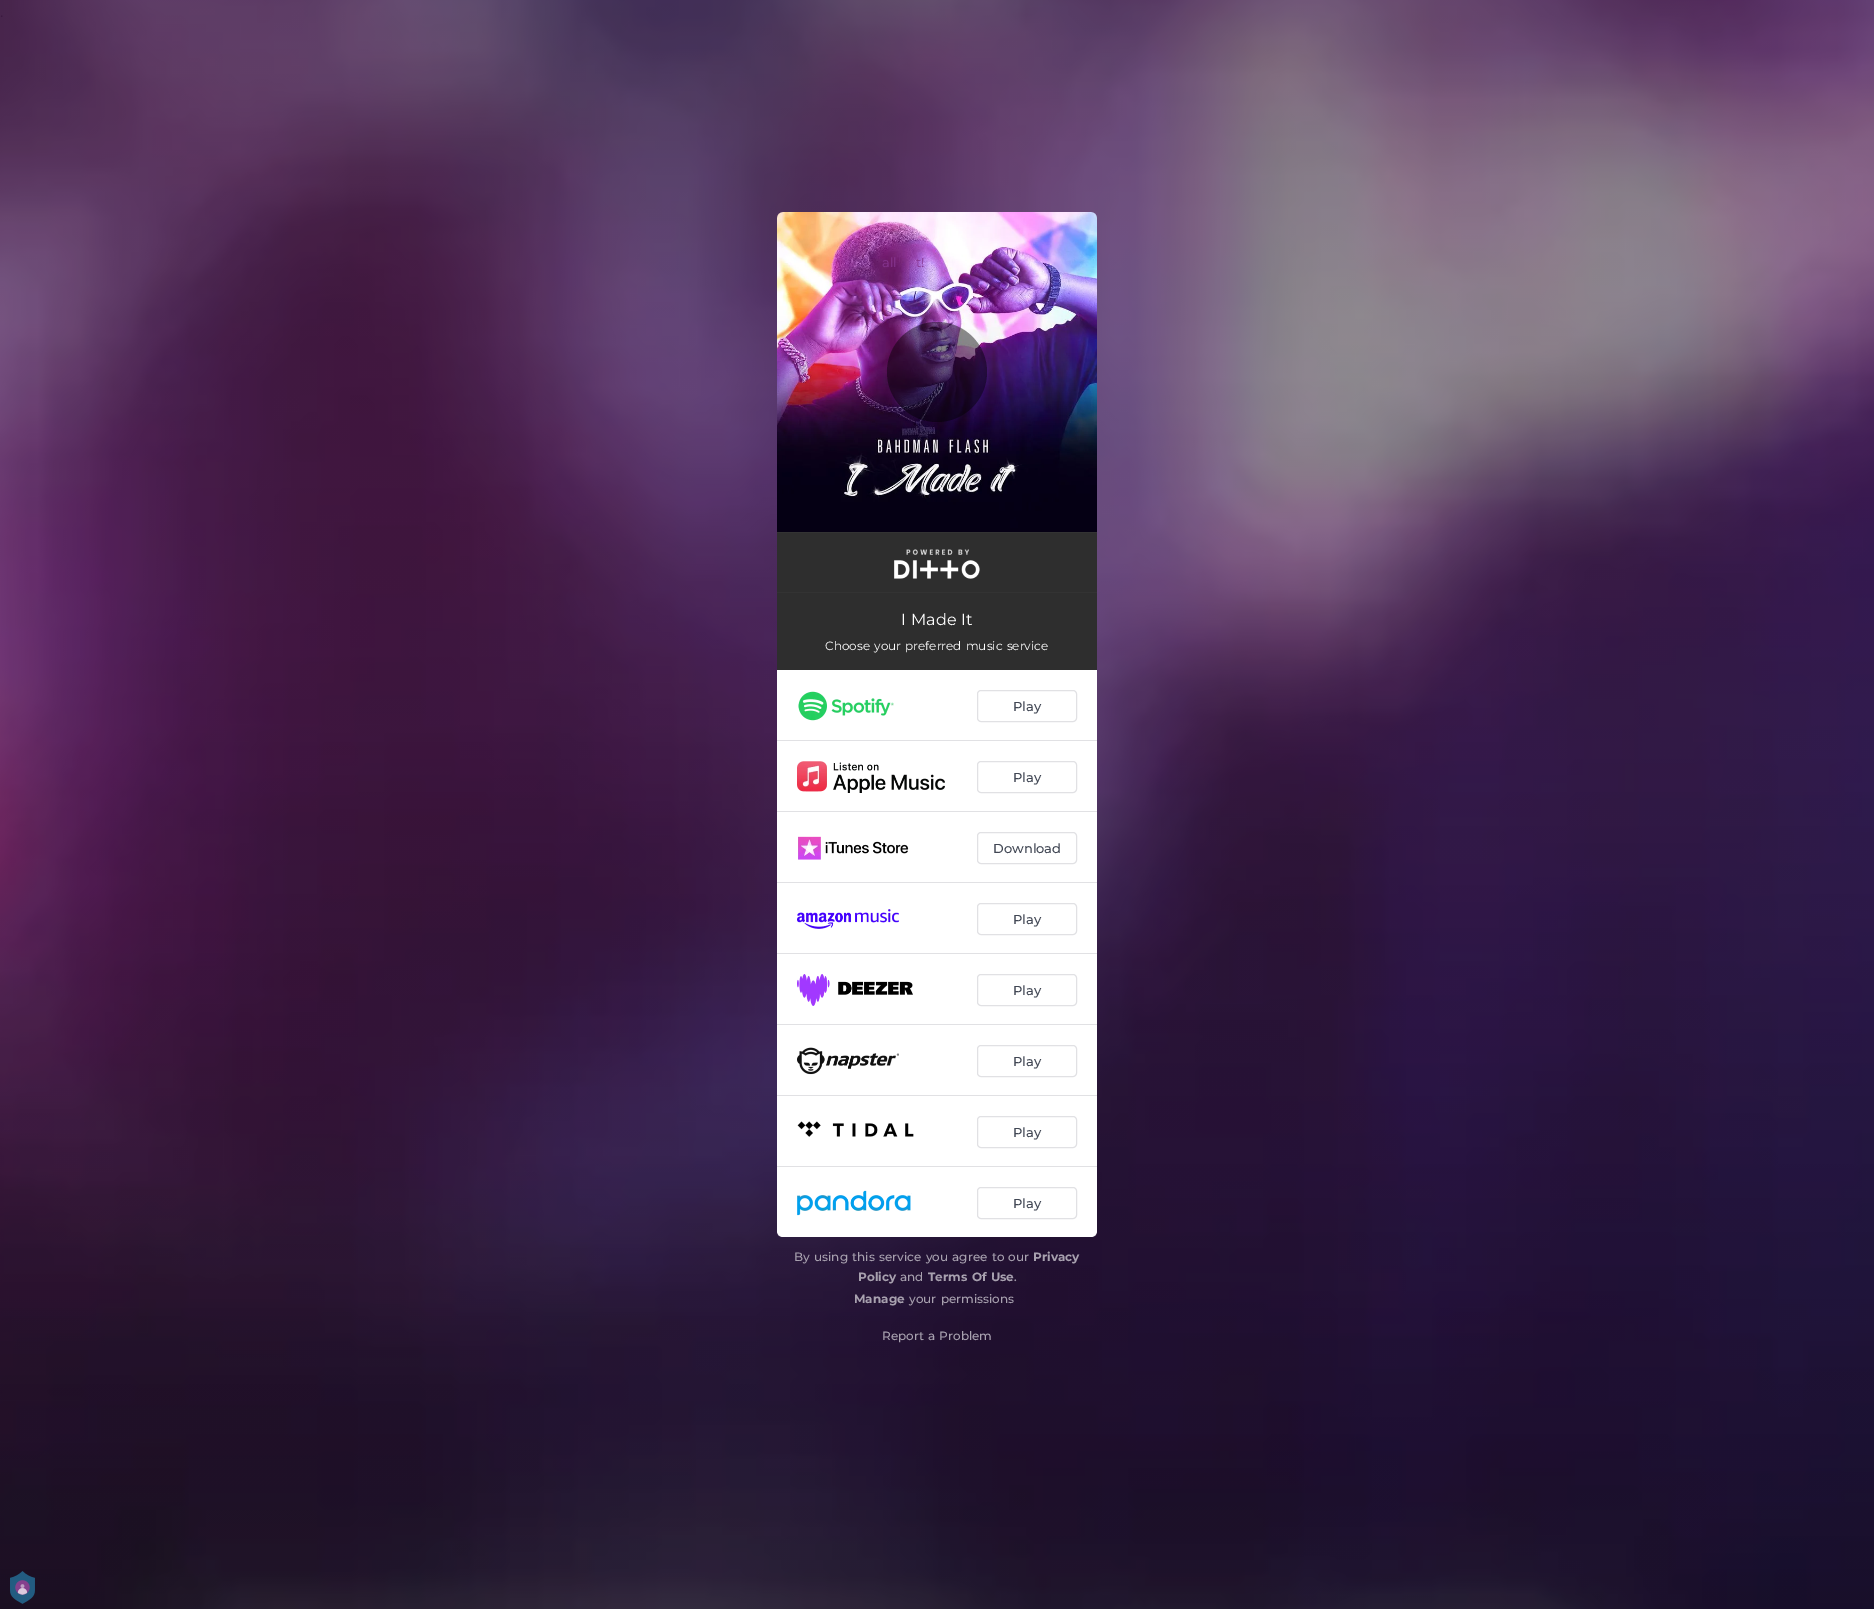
%!PS
<< /PageSize [1874 1609] /PageUsesTransparency true >> setpagedevice
/rgb { 3 { 255 div 3 1 roll } repeat setrgbcolor } def
/font { [ exch dup neg 0 0 3 -1 roll 0 0 ] selectfont } def
/alpha { dup .setfillconstantalpha .setstrokeconstantalpha } def
/circle { newpath 0 360 arc closepath } def
/roundrect { 5 dict begin { /r /h /w /y /x } { exch def } forall
  x r add y moveto x w add y 2 copy h add r arct x w add y h add x 1 index r arct
  x y h add x y r arct x y 2 copy exch w add exch r arct closepath end } def
/picture { 5 dict begin { /h /w /y /x /name } { exch def } forall
  gsave x y translate w h scale
  w h 8 [w 0 0 h 0 0] name (r) file false 3 colorimage grestore end } def
0 .pushpdf14devicefilter
0 1609 translate 1 -1 scale
4 setmiterlimit
255 255 255 rgb
0 0 1874 1609 rectfill
(img/1.rgb) 0 0 1874 1609 picture
(img/2.rgb) 777 212 320 320 picture
0.45 alpha
0 0 0 rgb
937 372 50 circle fill
1 alpha
[
  [777 533 320 59 46 46 46]
  [777 532 320 1 51 51 51]
  [777 592 320 1 51 51 51]
] { aload pop rgb rectfill } forall
(img/3.rgb) 894 549 86 30 picture
46 46 46 rgb
777 593 320 77 rectfill
255 255 255 rgb
777 670 moveto 1097 670 lineto 1097 1231 lineto 1097 1234.5 1094.5 1237 1091 1237 curveto 783 1237 lineto 779.5 1237 777 1234.5 777 1231 curveto closepath fill
225 225 228 rgb
777 740 320 1 rectfill
(img/4.rgb) 798 691 96 30 picture
977.5 690.5 99 31 3.5 roundrect stroke
777 811 320 1 rectfill
(img/5.rgb) 797 761 148 32 picture
977.5 761.5 99 31 3.5 roundrect stroke
777 882 320 1 rectfill
(img/6.rgb) 798 836 111 24 picture
977.5 832.5 99 31 3.5 roundrect stroke
777 953 320 1 rectfill
(img/7.rgb) 797 909 102 20 picture
977.5 903.5 99 31 3.5 roundrect stroke
777 1024 320 1 rectfill
(img/8.rgb) 797 974 116 32 picture
977.5 974.5 99 31 3.5 roundrect stroke
777 1095 320 1 rectfill
(img/9.rgb) 797 1047 102 28 picture
977.5 1045.5 99 31 3.5 roundrect stroke
777 1166 320 1 rectfill
(img/10.rgb) 797 1121 117 16 picture
977.5 1116.5 99 31 3.5 roundrect stroke
(img/11.rgb) 797 1190 115 26 picture
977.5 1187.5 99 31 3.5 roundrect stroke
(img/12.rgb) 10 1571 25 33 picture
/Montserrat-Regular 13 font
135 54 145 rgb
882 267 moveto 1 0 32 (all) widthshow
916 267 moveto 1 0 32 (t!) widthshow
/Montserrat-Regular 16 font
255 255 255 rgb
901 625 moveto 1 0 32 (I Made It) widthshow
/Montserrat-Regular 12 font
825 650 moveto 1 0 32 (Choose your preferred music service) widthshow
/Montserrat-Medium 13 font
65 71 84 rgb
[
  [(Play) 1013 711]
  [(Play) 1013 782]
  [(Download) 993 853]
  [(Play) 1013 924]
  [(Play) 1013 995]
  [(Play) 1013 1066]
  [(Play) 1013 1137]
  [(Play) 1013 1208]
] { aload pop moveto show } forall
/Montserrat-Medium 12 font
168 161 175 rgb
794 1261 moveto 1 0 32 (By using this service you agree to our) widthshow
/Montserrat-Bold 12 font
1033 1261 moveto (Privacy) show
858 1281 moveto (Policy) show
/Montserrat-Medium 12 font
900 1281 moveto (and) show
/Montserrat-Bold 12 font
928 1281 moveto 1 0 32 (Terms Of Use) widthshow
/Montserrat-Medium 12 font
1014 1281 moveto (.) show
/Montserrat-Bold 12 font
854 1303 moveto (Manage) show
/Montserrat-Medium 12 font
909 1303 moveto 1 0 32 (your permissions) widthshow
882 1340 moveto 1 0 32 (Report a Problem) widthshow
.poppdf14devicefilter showpage
